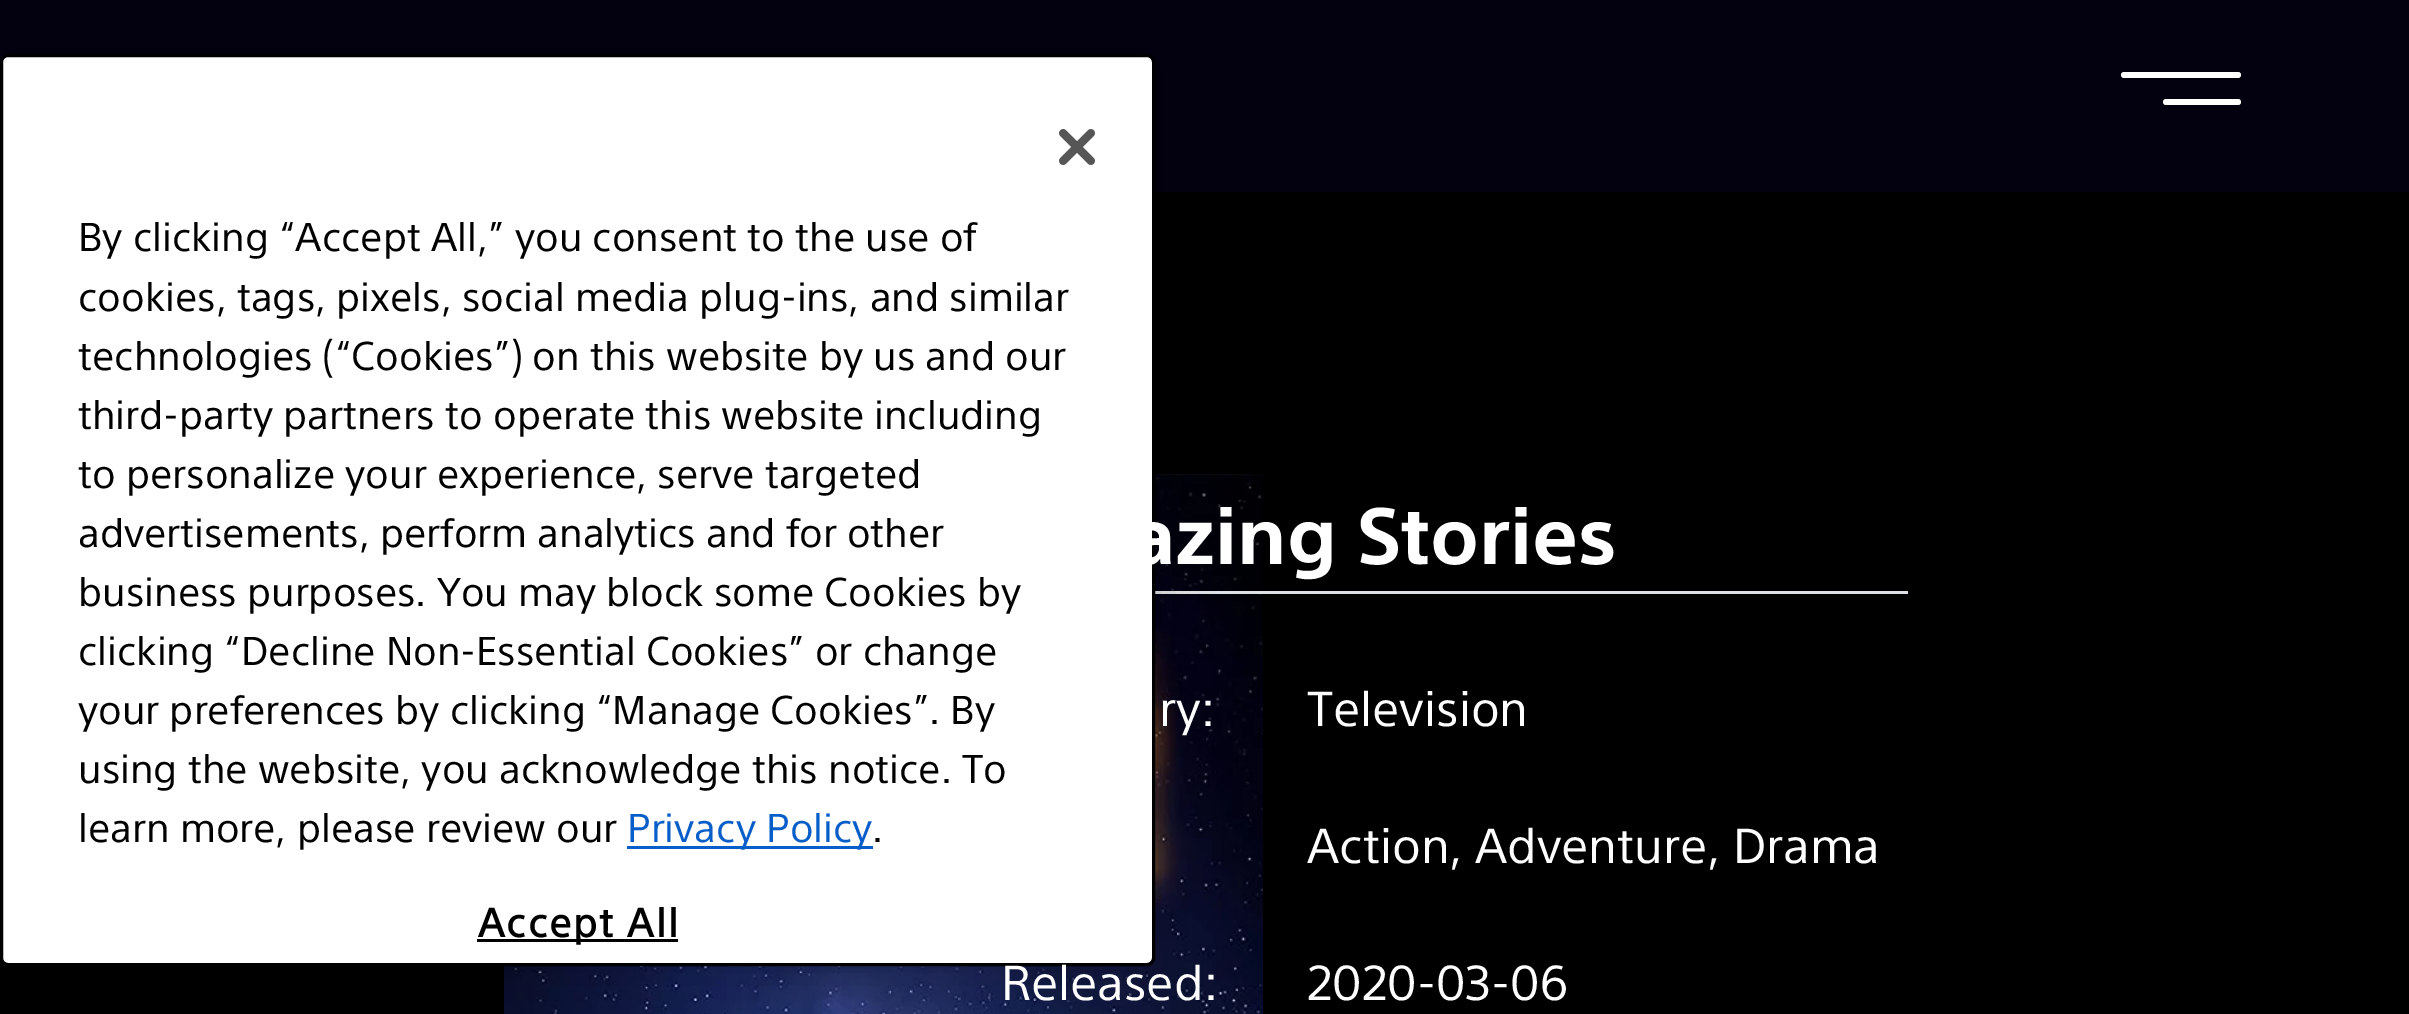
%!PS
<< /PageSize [2409 1014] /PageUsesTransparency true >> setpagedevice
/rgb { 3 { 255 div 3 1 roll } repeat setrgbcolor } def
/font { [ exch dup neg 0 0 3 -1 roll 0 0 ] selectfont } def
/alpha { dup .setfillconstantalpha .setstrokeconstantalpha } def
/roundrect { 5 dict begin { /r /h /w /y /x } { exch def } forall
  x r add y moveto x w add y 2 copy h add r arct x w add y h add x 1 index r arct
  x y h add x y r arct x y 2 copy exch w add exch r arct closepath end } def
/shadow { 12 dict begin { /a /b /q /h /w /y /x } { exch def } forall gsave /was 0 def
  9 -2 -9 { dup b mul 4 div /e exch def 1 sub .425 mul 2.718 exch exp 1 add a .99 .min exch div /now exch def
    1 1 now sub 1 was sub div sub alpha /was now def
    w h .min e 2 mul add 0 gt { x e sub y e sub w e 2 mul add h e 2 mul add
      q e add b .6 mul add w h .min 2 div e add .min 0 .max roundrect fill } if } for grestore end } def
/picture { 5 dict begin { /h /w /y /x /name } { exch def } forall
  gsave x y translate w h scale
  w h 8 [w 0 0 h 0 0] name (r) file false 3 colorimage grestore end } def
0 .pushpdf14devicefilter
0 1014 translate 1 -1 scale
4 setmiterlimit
0 0 0 rgb
0 0 2409 1014 rectfill
3 0 16 rgb
0 0 2409 192 rectfill
255 255 255 rgb
2121 72 120 6 3 roundrect fill
2163 99 78 6 3 roundrect fill
(img/2.rgb) 504 474 759 540 picture
222 226 230 rgb
1155 591 753 3 rectfill
0 0 0 rgb
0 54 1155 912 8 27 0.2 shadow
255 255 255 rgb
1.5 55.5 1152 909 6.5 roundrect gsave fill grestore
0 0 0 rgb
3 setlinewidth
stroke
(img/1.rgb) 1059 129 36 36 picture
8 94 200 rgb
627 846 246 3 rectfill
0 0 0 rgb
477 939 201 3 rectfill
/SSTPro-Regular 39.35 font
[
  [(By clicking “Accept All,” you consent to the use of) 78 251]
  [(cookies, tags, pixels, social media plug-ins, and similar) 78 311]
  [(technologies \(“Cookies”\) on this website by us and our) 78 370]
  [(third-party partners to operate this website including) 78 429]
  [(to personalize your experience, serve targeted) 78 488]
  [(advertisements, perform analytics and for other) 78 547]
  [(business purposes. You may block some Cookies by) 78 606]
  [(clicking “Decline Non-Essential Cookies” or change) 78 665]
  [(your preferences by clicking “Manage Cookies”. By) 78 724]
  [(using the website, you acknowledge this notice. To) 78 783]
  [(learn more, please review our) 78 842]
] { aload pop moveto show } forall
8 94 200 rgb
627 842 moveto (Privacy Policy) show
0 0 0 rgb
872 842 moveto (.) show
/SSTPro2-Bold 39.35 font
478 937 moveto 2 0 (Accept All) ashow
/SSTPro-Bold 78 font
255 255 255 rgb
1130 564 moveto (azing Stories) show
/SSTPro-Regular 48 font
[
  [(ry:) 1159 726]
  [(Television) 1307 726]
  [(Action, Adventure, Drama) 1307 863]
  [(Released:) 1001 1000]
  [(2020-03-06) 1307 1000]
] { aload pop moveto show } forall
.poppdf14devicefilter showpage
